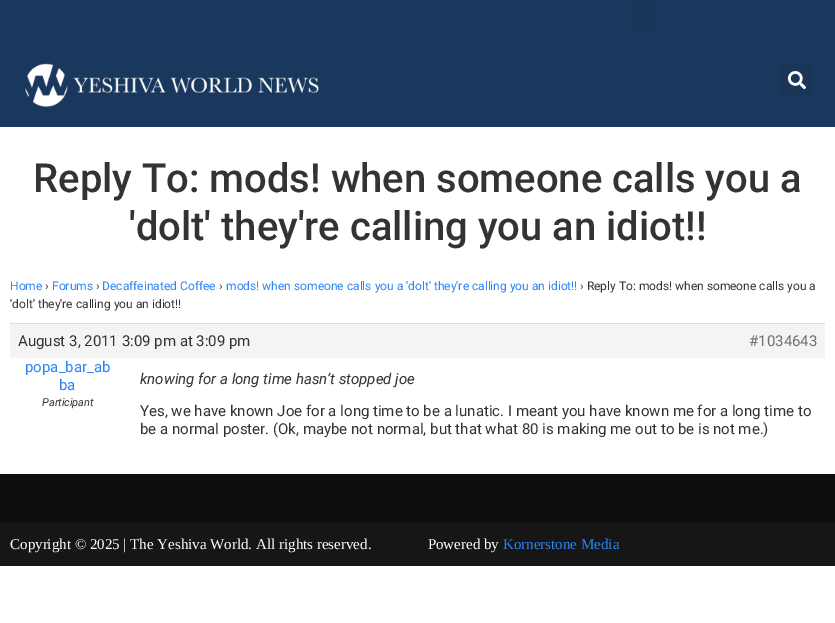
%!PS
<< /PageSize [835 623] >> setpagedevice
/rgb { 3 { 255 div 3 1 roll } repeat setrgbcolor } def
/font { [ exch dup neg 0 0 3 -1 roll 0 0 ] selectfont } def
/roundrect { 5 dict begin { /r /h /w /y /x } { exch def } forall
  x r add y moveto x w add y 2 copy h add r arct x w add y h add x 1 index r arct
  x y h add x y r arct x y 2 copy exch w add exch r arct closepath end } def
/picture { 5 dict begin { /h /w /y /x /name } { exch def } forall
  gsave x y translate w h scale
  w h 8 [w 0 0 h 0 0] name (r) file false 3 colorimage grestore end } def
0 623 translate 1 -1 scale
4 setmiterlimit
255 255 255 rgb
0 0 835 623 rectfill
26 56 93 rgb
0 0 835 127 rectfill
25 53 88 rgb
630 0 28 33 3 roundrect fill
(img/1.rgb) 25 63 294 44 picture
780 63 33 33 3 roundrect fill
(img/2.rgb) 787 71 19 19 picture
[
  [10 324 815 34 244 244 244]
  [10 323 815 1 221 221 221]
  [0 474 835 49 14 14 14]
  [0 523 835 43 22 22 22]
] { aload pop rgb rectfill } forall
/Roboto-Medium 40 font
51 51 51 rgb
33 192 moveto (Reply To: mods! when someone calls you a) show
129 240 moveto ('dolt' they're calling you an idiot!!) show
/Roboto-Regular 12 font
43 133 244 rgb
10 290 moveto (Home) show
51 51 51 rgb
45 290 moveto (›) show
43 133 244 rgb
52 290 moveto (Forums) show
51 51 51 rgb
96 290 moveto (›) show
43 133 244 rgb
102 290 moveto (Decaffeinated Coffee) show
51 51 51 rgb
219 290 moveto (›) show
43 133 244 rgb
226 290 moveto (mods! when someone calls you a 'dolt' they're calling you an idiot!!) show
51 51 51 rgb
580 290 moveto (› Reply To: mods! when someone calls you a) show
10 308 moveto ('dolt' they're calling you an idiot!!) show
/Roboto-Regular 15 font
18 346 moveto (August 3, 2011 3:09 pm at 3:09 pm) show
112 112 112 rgb
749 346 moveto (#1034643) show
43 133 244 rgb
25 372 moveto (popa_bar_ab) show
59 390 moveto (ba) show
/Roboto-Italic 11 font
51 51 51 rgb
42 406 moveto (Participant) show
/Roboto-Italic 15 font
140 384 moveto (knowing for a long time hasn’t stopped joe) show
/Roboto-Regular 15 font
140 416 moveto (Yes, we have known Joe for a long time to be a lunatic. I meant you have known me for a long time to) show
140 434 moveto (be a normal poster. \(Ok, maybe not normal, but that what 80 is making me out to be is not me.\)) show
/LiberationSerif-Regular 15 font
255 255 255 rgb
10 549 moveto (Copyright © 2025 | The Yeshiva World. All rights reserved.               Powered by) show
43 133 244 rgb
503 549 moveto (Kornerstone Media) show
showpage
